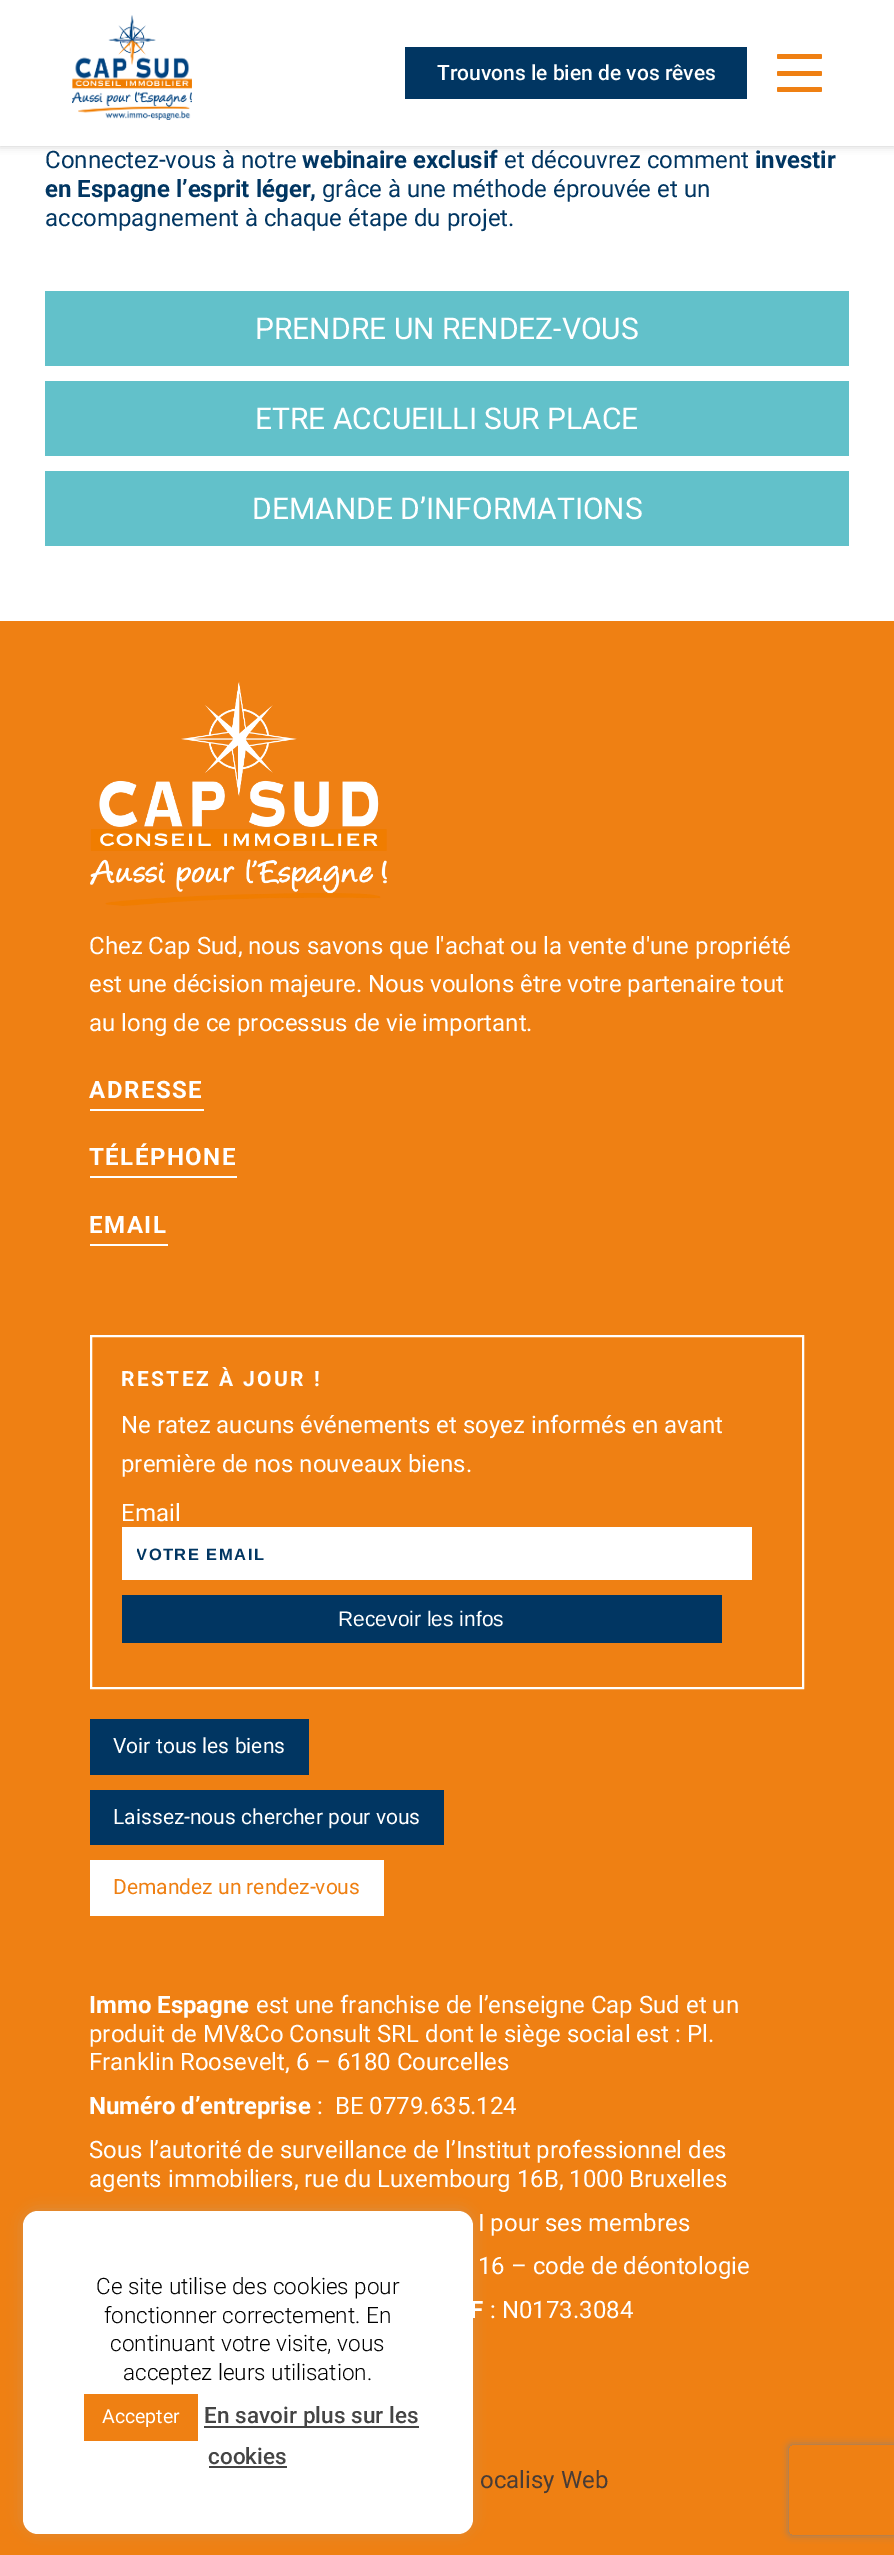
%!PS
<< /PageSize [894 2555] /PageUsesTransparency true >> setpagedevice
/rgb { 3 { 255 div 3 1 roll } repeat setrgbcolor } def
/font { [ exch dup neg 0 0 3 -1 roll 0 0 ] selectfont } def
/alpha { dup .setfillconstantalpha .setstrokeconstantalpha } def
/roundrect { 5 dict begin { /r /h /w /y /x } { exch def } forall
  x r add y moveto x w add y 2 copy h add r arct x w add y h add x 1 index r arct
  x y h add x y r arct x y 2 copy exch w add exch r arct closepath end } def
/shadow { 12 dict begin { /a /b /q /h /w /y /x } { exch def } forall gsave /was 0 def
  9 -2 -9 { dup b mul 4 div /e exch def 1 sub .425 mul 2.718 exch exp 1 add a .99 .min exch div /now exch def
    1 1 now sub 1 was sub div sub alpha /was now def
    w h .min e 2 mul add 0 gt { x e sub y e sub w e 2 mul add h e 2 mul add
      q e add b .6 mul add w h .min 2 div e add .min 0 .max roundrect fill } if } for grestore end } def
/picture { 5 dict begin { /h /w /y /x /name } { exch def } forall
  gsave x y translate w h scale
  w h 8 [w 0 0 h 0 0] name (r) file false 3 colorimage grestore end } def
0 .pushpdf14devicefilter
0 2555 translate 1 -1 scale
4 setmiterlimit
255 255 255 rgb
0 0 894 2555 rectfill
1 1 1 rgb
0 0 894 146 0 4 0.2 shadow
255 255 255 rgb
0 0 894 146 rectfill
(img/1.rgb) 72 15 120 105 picture
1 54 98 rgb
405 47 342 52 rectfill
239 128 19 rgb
777 54 45 5 1.5 roundrect fill
777 71 45 5 1.5 roundrect fill
777 87 45 5 1.5 roundrect fill
[
  [45 291 804 75 98 193 202]
  [45 381 804 75 98 193 202]
  [45 471 804 75 98 193 202]
  [0 621 894 1934 239 128 19]
] { aload pop rgb rectfill } forall
(img/2.rgb) 90 681 297 225 picture
[
  [90 1109 114 2 255 255 255]
  [90 1176 147 2 255 255 255]
  [90 1244 78 2 255 255 255]
] { aload pop rgb rectfill } forall
2 setlinewidth
91 1336 712 352 rectstroke
[
  [122 1527 630 53 255 255 255]
  [122 1595 600 48 1 54 98]
  [90 1719 219 56 1 54 98]
  [90 1790 354 55 1 54 98]
  [90 1860 294 56 255 255 255]
] { aload pop rgb rectfill } forall
172 171 171 rgb
23 2210 450 322 15 7.5 0.3 shadow
255 255 255 rgb
23 2211 450 323 15 roundrect fill
[
  [84 2394 114 47 239 128 19]
  [204 2426 215 2 68 68 68]
  [209 2466 78 2 68 68 68]
] { aload pop rgb rectfill } forall
gsave
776 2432 moveto 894 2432 lineto 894 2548 lineto 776 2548 lineto closepath 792 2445 moveto 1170 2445 lineto 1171.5 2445 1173 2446.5 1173 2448 curveto 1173 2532 lineto 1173 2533.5 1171.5 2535 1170 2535 curveto 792 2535 lineto 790.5 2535 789 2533.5 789 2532 curveto 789 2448 lineto 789 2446.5 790.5 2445 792 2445 curveto closepath eoclip newpath
128 128 128 rgb
789 2445 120 90 3 4 1 shadow
grestore
/Roboto-Medium 21 font
255 255 255 rgb
437 80 moveto (Trouvons le bien de vos rêves) show
/Roboto-Regular 24 font
1 54 98 rgb
45 168 moveto (Connectez-vous à notre) show
/Roboto-Bold 24 font
302 168 moveto (webinaire exclusif) show
/Roboto-Regular 24 font
504 168 moveto (et découvrez comment) show
/Roboto-Bold 24 font
755 168 moveto (investir) show
45 197 moveto (en Espagne l’esprit léger,) show
/Roboto-Regular 24 font
322 197 moveto (grâce à une méthode éprouvée et un) show
45 226 moveto (accompagnement à chaque étape du projet.) show
/Roboto-Regular 30 font
255 255 255 rgb
[
  [(PRENDRE UN RENDEZ-VOUS) 255 339]
  [(ETRE ACCUEILLI SUR PLACE) 255 429]
  [(DEMANDE D’INFORMATIONS) 252 519]
] { aload pop moveto show } forall
/Roboto-Regular 24 font
[
  [(Chez Cap Sud, nous savons que l'achat ou la vente d'une propriété) 89 954]
  [(est une décision majeure. Nous voulons être votre partenaire tout) 89 992]
  [(au long de ce processus de vie important.) 89 1031]
] { aload pop moveto show } forall
/Roboto-Bold 24 font
89 1098 moveto 1.5 0 (ADRESSE) ashow
89 1165 moveto 1.5 0 (TÉLÉPHONE) ashow
89 1233 moveto 1.5 0 (EMAIL) ashow
/Roboto-Bold 21 font
121 1386 moveto 2.4 0 (RESTEZ À JOUR !) ashow
/Roboto-Regular 24 font
[
  [(Ne ratez aucuns événements et soyez informés en avant) 121 1433]
  [(première de nos nouveaux biens.) 121 1472]
  [(Email) 121 1521]
] { aload pop moveto show } forall
gsave
137 1545 600 18 rectclip
/LiberationSans-Bold 16.5 font
1 54 98 rgb
136 1560 moveto 1.5 0 (VOTRE EMAIL) ashow
grestore
/LiberationSans-Regular 21 font
338 1626 moveto (Recevoir les infos) show
/Roboto-Regular 21 font
113 1753 moveto (Voir tous les biens) show
113 1824 moveto (Laissez-nous chercher pour vous) show
239 128 19 rgb
113 1894 moveto (Demandez un rendez-vous) show
/Roboto-Bold 24 font
255 255 255 rgb
89 2013 moveto (Immo Espagne) show
/Roboto-Regular 24 font
[
  [(est une franchise de l’enseigne Cap Sud et un) 256 2013]
  [(produit de MV&Co Consult SRL dont le siège social est : Pl.) 89 2042]
  [(Franklin Roosevelt, 6 – 6180 Courcelles) 89 2070]
] { aload pop moveto show } forall
/Roboto-Bold 24 font
89 2114 moveto (Numéro d’entreprise) show
/Roboto-Regular 24 font
[
  [(:  BE 0779.635.124) 317 2114]
  [(Sous l’autorité de surveillance de l’Institut professionnel des) 89 2158]
  [(agents immobiliers, rue du Luxembourg 16B, 1000 Bruxelles) 89 2187]
  [(I pour ses membres) 478 2231]
  [(16 – code de déontologie) 478 2274]
] { aload pop moveto show } forall
/Roboto-Bold 24 font
470 2318 moveto (F) show
/Roboto-Regular 24 font
490 2318 moveto (: N0173.3084) show
73 60 54 rgb
480 2488 moveto (ocalisy Web) show
/Roboto-Light 22.5 font
0 0 0 rgb
[
  [(Ce site utilise des cookies pour) 96 2294]
  [(fonctionner correctement. En) 104 2323]
  [(continuant votre visite, vous) 110 2351]
  [(acceptez leurs utilisation.) 123 2380]
] { aload pop moveto show } forall
/Roboto-Regular 19.5 font
255 255 255 rgb
102 2423 moveto (Accepter) show
/Roboto-Medium 22.5 font
68 68 68 rgb
204 2423 moveto 0.5 0 32 (En savoir plus sur les) widthshow
208 2464 moveto (cookies) show
.poppdf14devicefilter showpage
